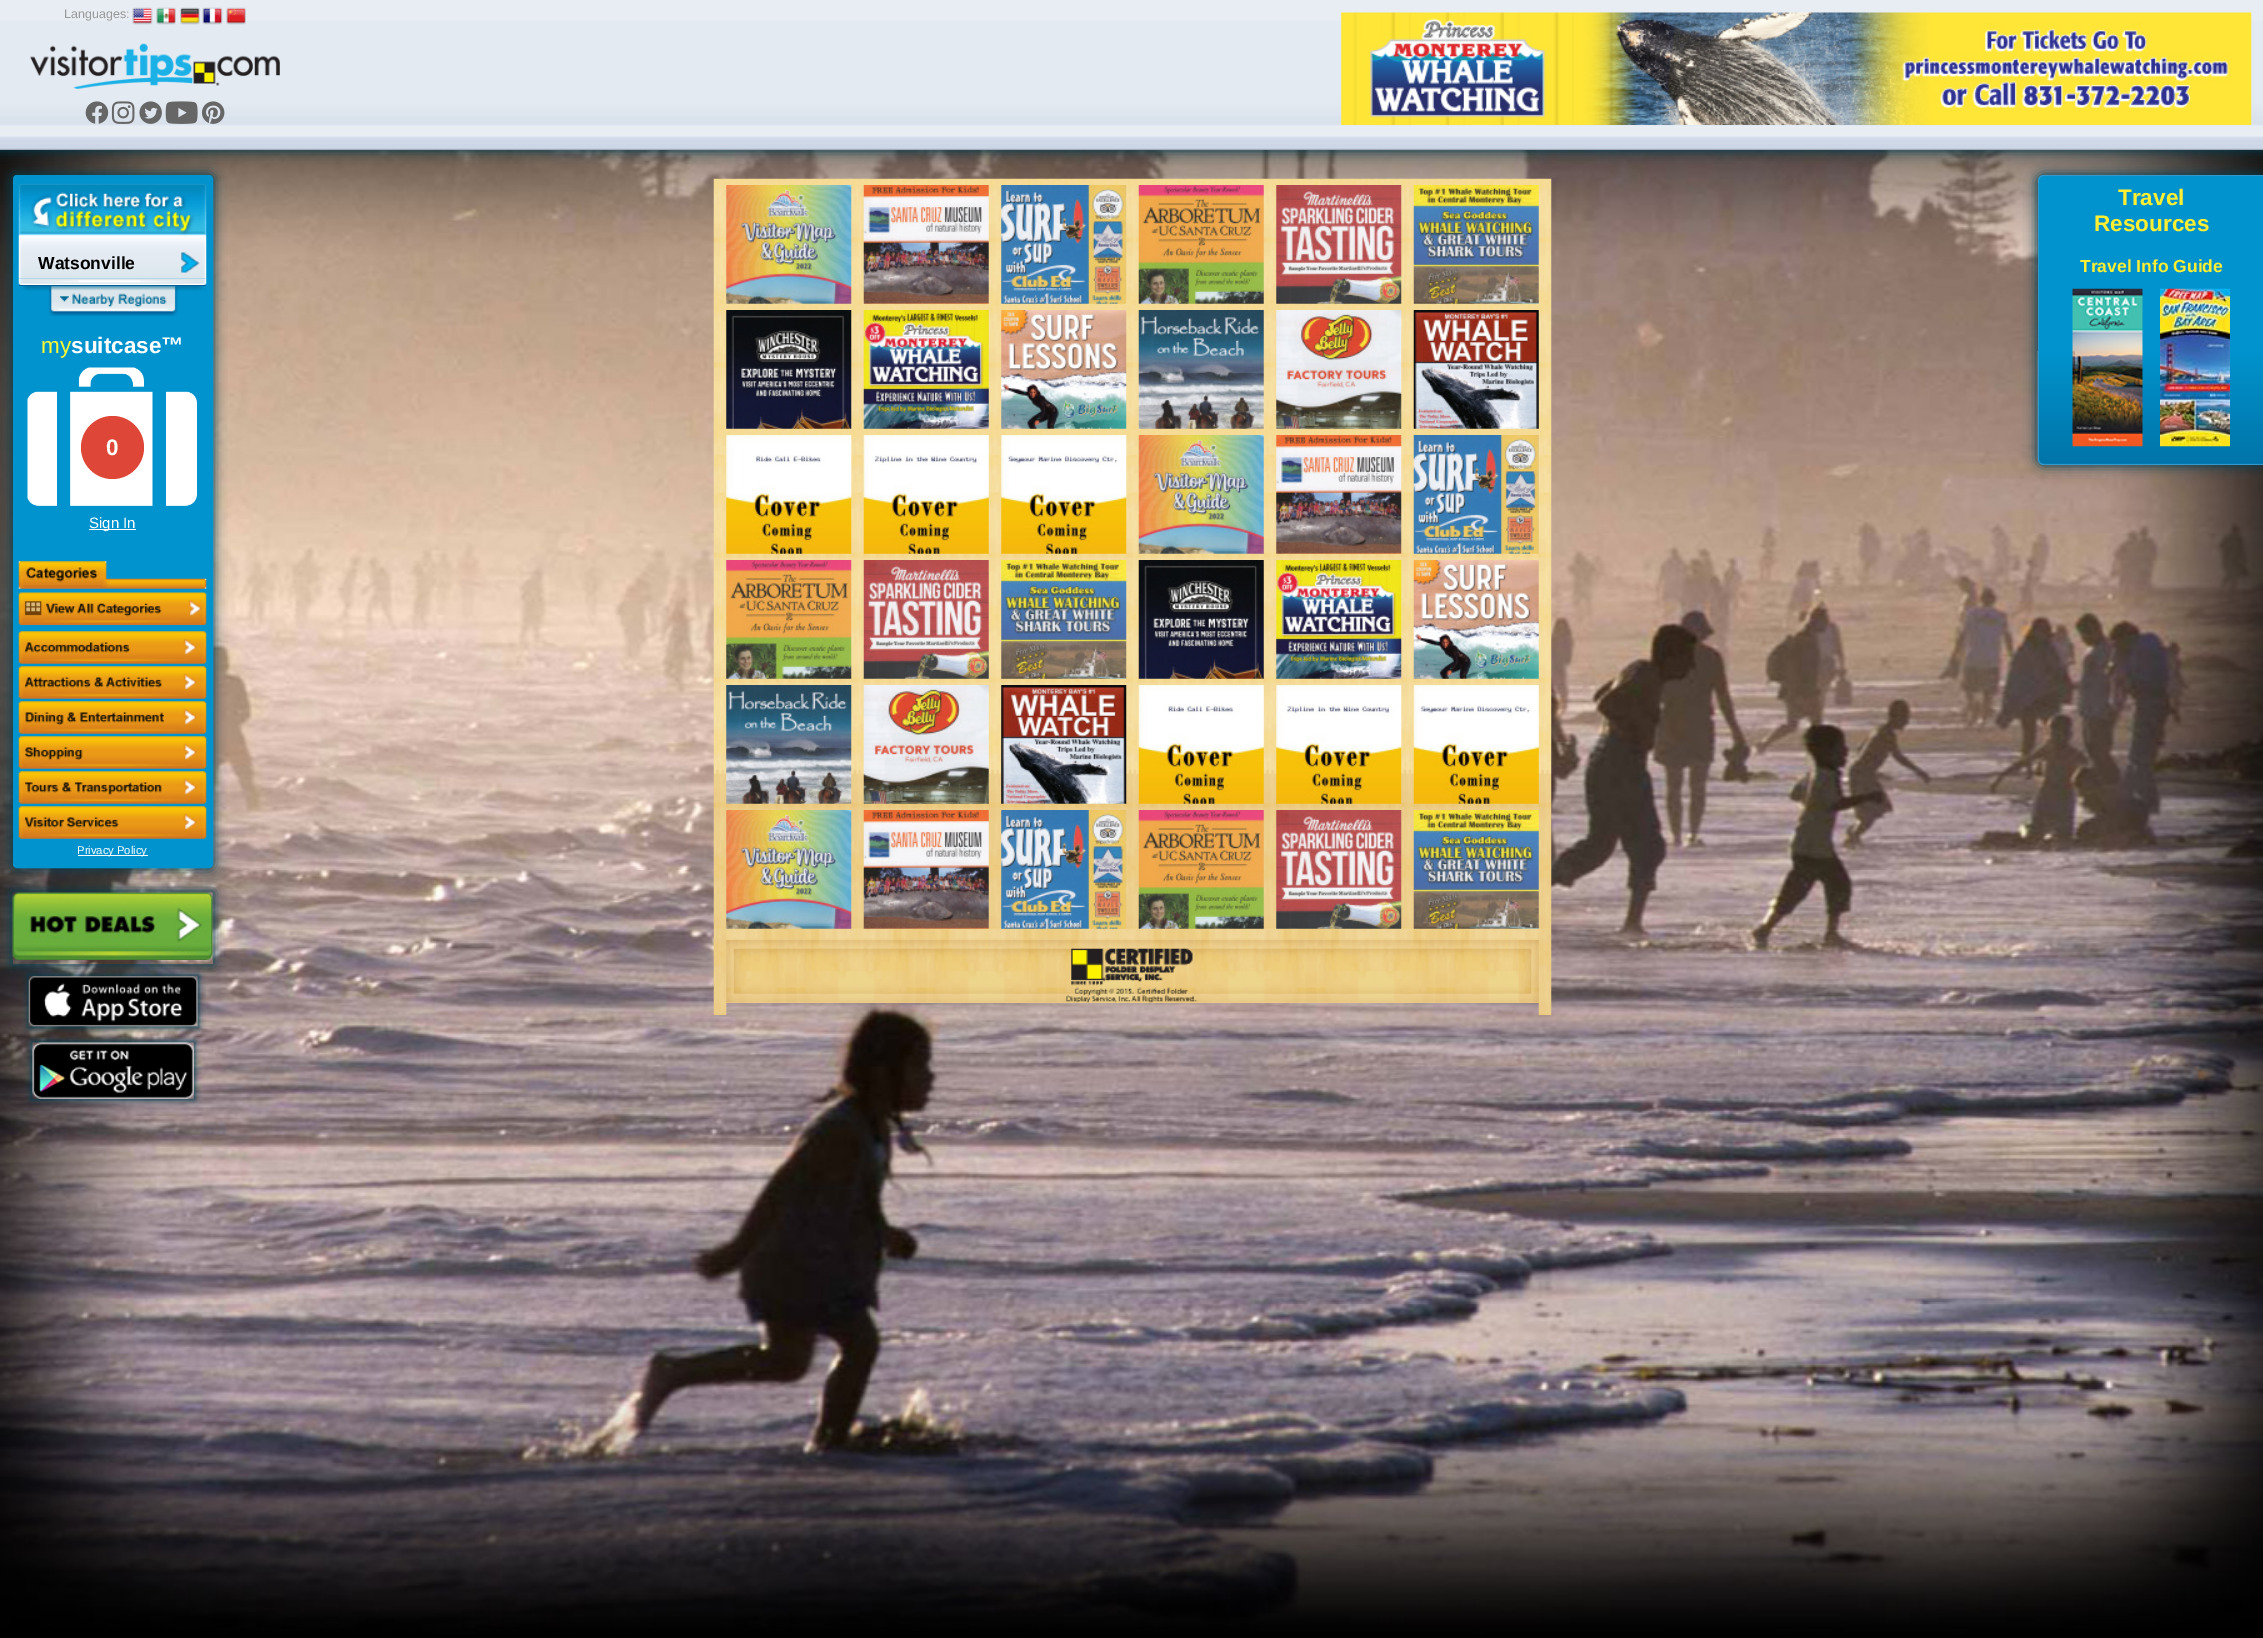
%!PS
<< /PageSize [2263 1638] /PageUsesTransparency true >> setpagedevice
/rgb { 3 { 255 div 3 1 roll } repeat setrgbcolor } def
/font { [ exch dup neg 0 0 3 -1 roll 0 0 ] selectfont } def
/alpha { dup .setfillconstantalpha .setstrokeconstantalpha } def
/circle { newpath 0 360 arc closepath } def
/roundrect { 5 dict begin { /r /h /w /y /x } { exch def } forall
  x r add y moveto x w add y 2 copy h add r arct x w add y h add x 1 index r arct
  x y h add x y r arct x y 2 copy exch w add exch r arct closepath end } def
/shadow { 12 dict begin { /a /b /q /h /w /y /x } { exch def } forall gsave /was 0 def
  9 -2 -9 { dup b mul 4 div /e exch def 1 sub .425 mul 2.718 exch exp 1 add a .99 .min exch div /now exch def
    1 1 now sub 1 was sub div sub alpha /was now def
    w h .min e 2 mul add 0 gt { x e sub y e sub w e 2 mul add h e 2 mul add
      q e add b .6 mul add w h .min 2 div e add .min 0 .max roundrect fill } if } for grestore end } def
/picture { 5 dict begin { /h /w /y /x /name } { exch def } forall
  gsave x y translate w h scale
  w h 8 [w 0 0 h 0 0] name (r) file false 3 colorimage grestore end } def
0 .pushpdf14devicefilter
0 1638 translate 1 -1 scale
4 setmiterlimit
255 255 255 rgb
0 0 2263 1638 rectfill
(img/14.rgb) 0 150 2263 1488 picture
0 60 80 rgb
-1 -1 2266 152 0 6 1 shadow
232 237 243 rgb
0 0 2263 21 rectfill
(img/1.rgb) 0 21 2263 129 picture
(img/2.rgb) 132 7 21 18 picture
(img/3.rgb) 156 7 20 18 picture
(img/4.rgb) 180 7 20 18 picture
(img/5.rgb) 202 7 21 18 picture
(img/6.rgb) 226 7 20 18 picture
(img/7.rgb) 1341 12 911 113 picture
(img/8.rgb) 30 43 250 46 picture
(img/9.rgb) 85 101 24 23 picture
(img/10.rgb) 111 101 24 23 picture
(img/11.rgb) 139 101 23 23 picture
(img/12.rgb) 165 101 33 23 picture
(img/13.rgb) 201 101 24 23 picture
(img/15.rgb) 713 178 839 751 picture
(img/16.rgb) 726 185 126 119 picture
(img/17.rgb) 863 185 126 119 picture
(img/18.rgb) 1001 185 126 119 picture
(img/19.rgb) 1138 185 126 119 picture
(img/20.rgb) 1276 185 126 119 picture
(img/21.rgb) 1413 185 126 119 picture
(img/22.rgb) 726 310 126 119 picture
(img/23.rgb) 863 310 126 119 picture
(img/24.rgb) 1001 310 126 119 picture
(img/25.rgb) 1138 310 126 119 picture
(img/26.rgb) 1276 310 126 119 picture
(img/27.rgb) 1413 310 126 119 picture
(img/28.rgb) 726 435 126 119 picture
(img/29.rgb) 863 435 126 119 picture
(img/30.rgb) 1001 435 126 119 picture
(img/31.rgb) 1138 435 126 119 picture
(img/32.rgb) 1276 435 126 119 picture
(img/33.rgb) 1413 435 126 119 picture
(img/34.rgb) 726 560 126 119 picture
(img/35.rgb) 863 560 126 119 picture
(img/36.rgb) 1001 560 126 119 picture
(img/37.rgb) 1138 560 126 119 picture
(img/38.rgb) 1276 560 126 119 picture
(img/39.rgb) 1413 560 126 119 picture
(img/40.rgb) 726 685 126 119 picture
(img/41.rgb) 863 685 126 119 picture
(img/42.rgb) 1001 685 126 119 picture
(img/43.rgb) 1138 685 126 119 picture
(img/44.rgb) 1276 685 126 119 picture
(img/45.rgb) 1413 685 126 119 picture
(img/52.rgb) 713 928 14 87 picture
(img/53.rgb) 1538 928 14 87 picture
238 205 134 rgb
726 929 813 74 rectfill
(img/54.rgb) 726 928 813 75 picture
(img/46.rgb) 726 810 126 119 picture
(img/47.rgb) 863 810 126 119 picture
(img/48.rgb) 1001 810 126 119 picture
(img/49.rgb) 1138 810 126 119 picture
(img/50.rgb) 1276 810 126 119 picture
(img/51.rgb) 1413 810 126 119 picture
(img/55.rgb) 726 940 21 63 picture
(img/56.rgb) 1518 940 21 63 picture
(img/57.rgb) 1066 948 131 55 picture
0 60 80 rgb
2036 174 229 292 8 6 1 shadow
1 147 206 rgb
2044 175 moveto 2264 175 lineto 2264 465 lineto 2044 465 lineto 2040.5 465 2038 462.5 2038 459 curveto 2038 181 lineto 2038 177.5 2040.5 175 2044 175 curveto closepath fill
(img/58.rgb) 2037 351 226 113 picture
51 153 204 rgb
2044 175 moveto 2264 175 lineto 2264 465 lineto 2044 465 lineto 2040 465 2038 462 2038 459 curveto 2038 181 lineto 2038 178 2040 175 2044 175 curveto closepath 2044 176 moveto 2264 176 lineto 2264 464 lineto 2044 464 lineto 2041 464 2039 462 2039 459 curveto 2039 181 lineto 2039 178 2041 176 2044 176 curveto closepath eofill
(img/59.rgb) 2072 288 71 159 picture
(img/60.rgb) 2160 288 70 159 picture
0 60 80 rgb
11 174 203 695 5 6 1 shadow
1 147 206 rgb
14.5 176.5 197 690 2.5 roundrect gsave fill grestore
3 setlinewidth
stroke
(img/61.rgb) 18 278 189 7 picture
(img/62.rgb) 18 183 189 96 picture
(img/63.rgb) 181 252 19 21 picture
(img/64.rgb) 21 286 185 5 picture
0 94 151 rgb
19 285 187 1 rectfill
(img/65.rgb) 48 286 130 30 picture
(img/66.rgb) 27 367 170 139 picture
222 71 56 rgb
112.5 447.5 31.5 circle fill
255 255 255 rgb
89 529 47 1 rectfill
(img/67.rgb) 18 561 189 28 picture
(img/68.rgb) 18 592 189 33 picture
(img/69.rgb) 18 631 189 33 picture
(img/70.rgb) 25 642 106 11 picture
(img/69.rgb) 18 666 189 33 picture
(img/71.rgb) 25 677 137 11 picture
(img/69.rgb) 18 701 189 33 picture
(img/72.rgb) 25 712 139 13 picture
(img/69.rgb) 18 736 189 33 picture
(img/73.rgb) 25 747 58 13 picture
(img/69.rgb) 18 771 189 33 picture
(img/74.rgb) 25 782 137 13 picture
(img/69.rgb) 18 806 189 33 picture
(img/75.rgb) 25 817 94 11 picture
78 855 70 1 rectfill
gsave
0 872 moveto 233 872 lineto 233 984 lineto 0 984 lineto closepath 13 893 moveto 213 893 lineto 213 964 lineto 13 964 lineto closepath eoclip newpath
0 60 80 rgb
11 891 203 74 0 6 1 shadow
grestore
(img/76.rgb) 12 892 201 68 picture
gsave
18 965 moveto 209 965 lineto 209 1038 lineto 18 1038 lineto closepath 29 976 moveto 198 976 lineto 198 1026 lineto 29 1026 lineto closepath eoclip newpath
0 60 80 rgb
28 975 171 53 0 3 1 shadow
grestore
(img/77.rgb) 28 976 170 51 picture
gsave
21 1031 moveto 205 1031 lineto 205 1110 lineto 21 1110 lineto closepath 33 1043 moveto 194 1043 lineto 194 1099 lineto 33 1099 lineto closepath eoclip newpath
0 60 80 rgb
31 1041 164 59 0 3 1 shadow
grestore
(img/78.rgb) 32 1042 162 57 picture
/LiberationSans-Regular 12.5 font
153 153 153 rgb
64 18 moveto (Languages:) show
/LiberationSans-Bold 22.5 font
254 239 50 rgb
2118 205 moveto (Travel) show
2094 231 moveto (Resources) show
/LiberationSans-Bold 17.5 font
2080 272 moveto (Travel Info Guide) show
0 0 0 rgb
38 269 moveto (Watsonville) show
/LiberationSans-Regular 22.5 font
255 248 53 rgb
41 353 moveto (my) show
/LiberationSans-Bold 22.5 font
255 255 255 rgb
71 353 moveto (suitcase™) show
106 455 moveto (0) show
/LiberationSans-Regular 15 font
89 528 moveto (Sign In) show
/LiberationSans-Regular 11.25 font
77 854 moveto (Privacy Policy) show
.poppdf14devicefilter showpage
